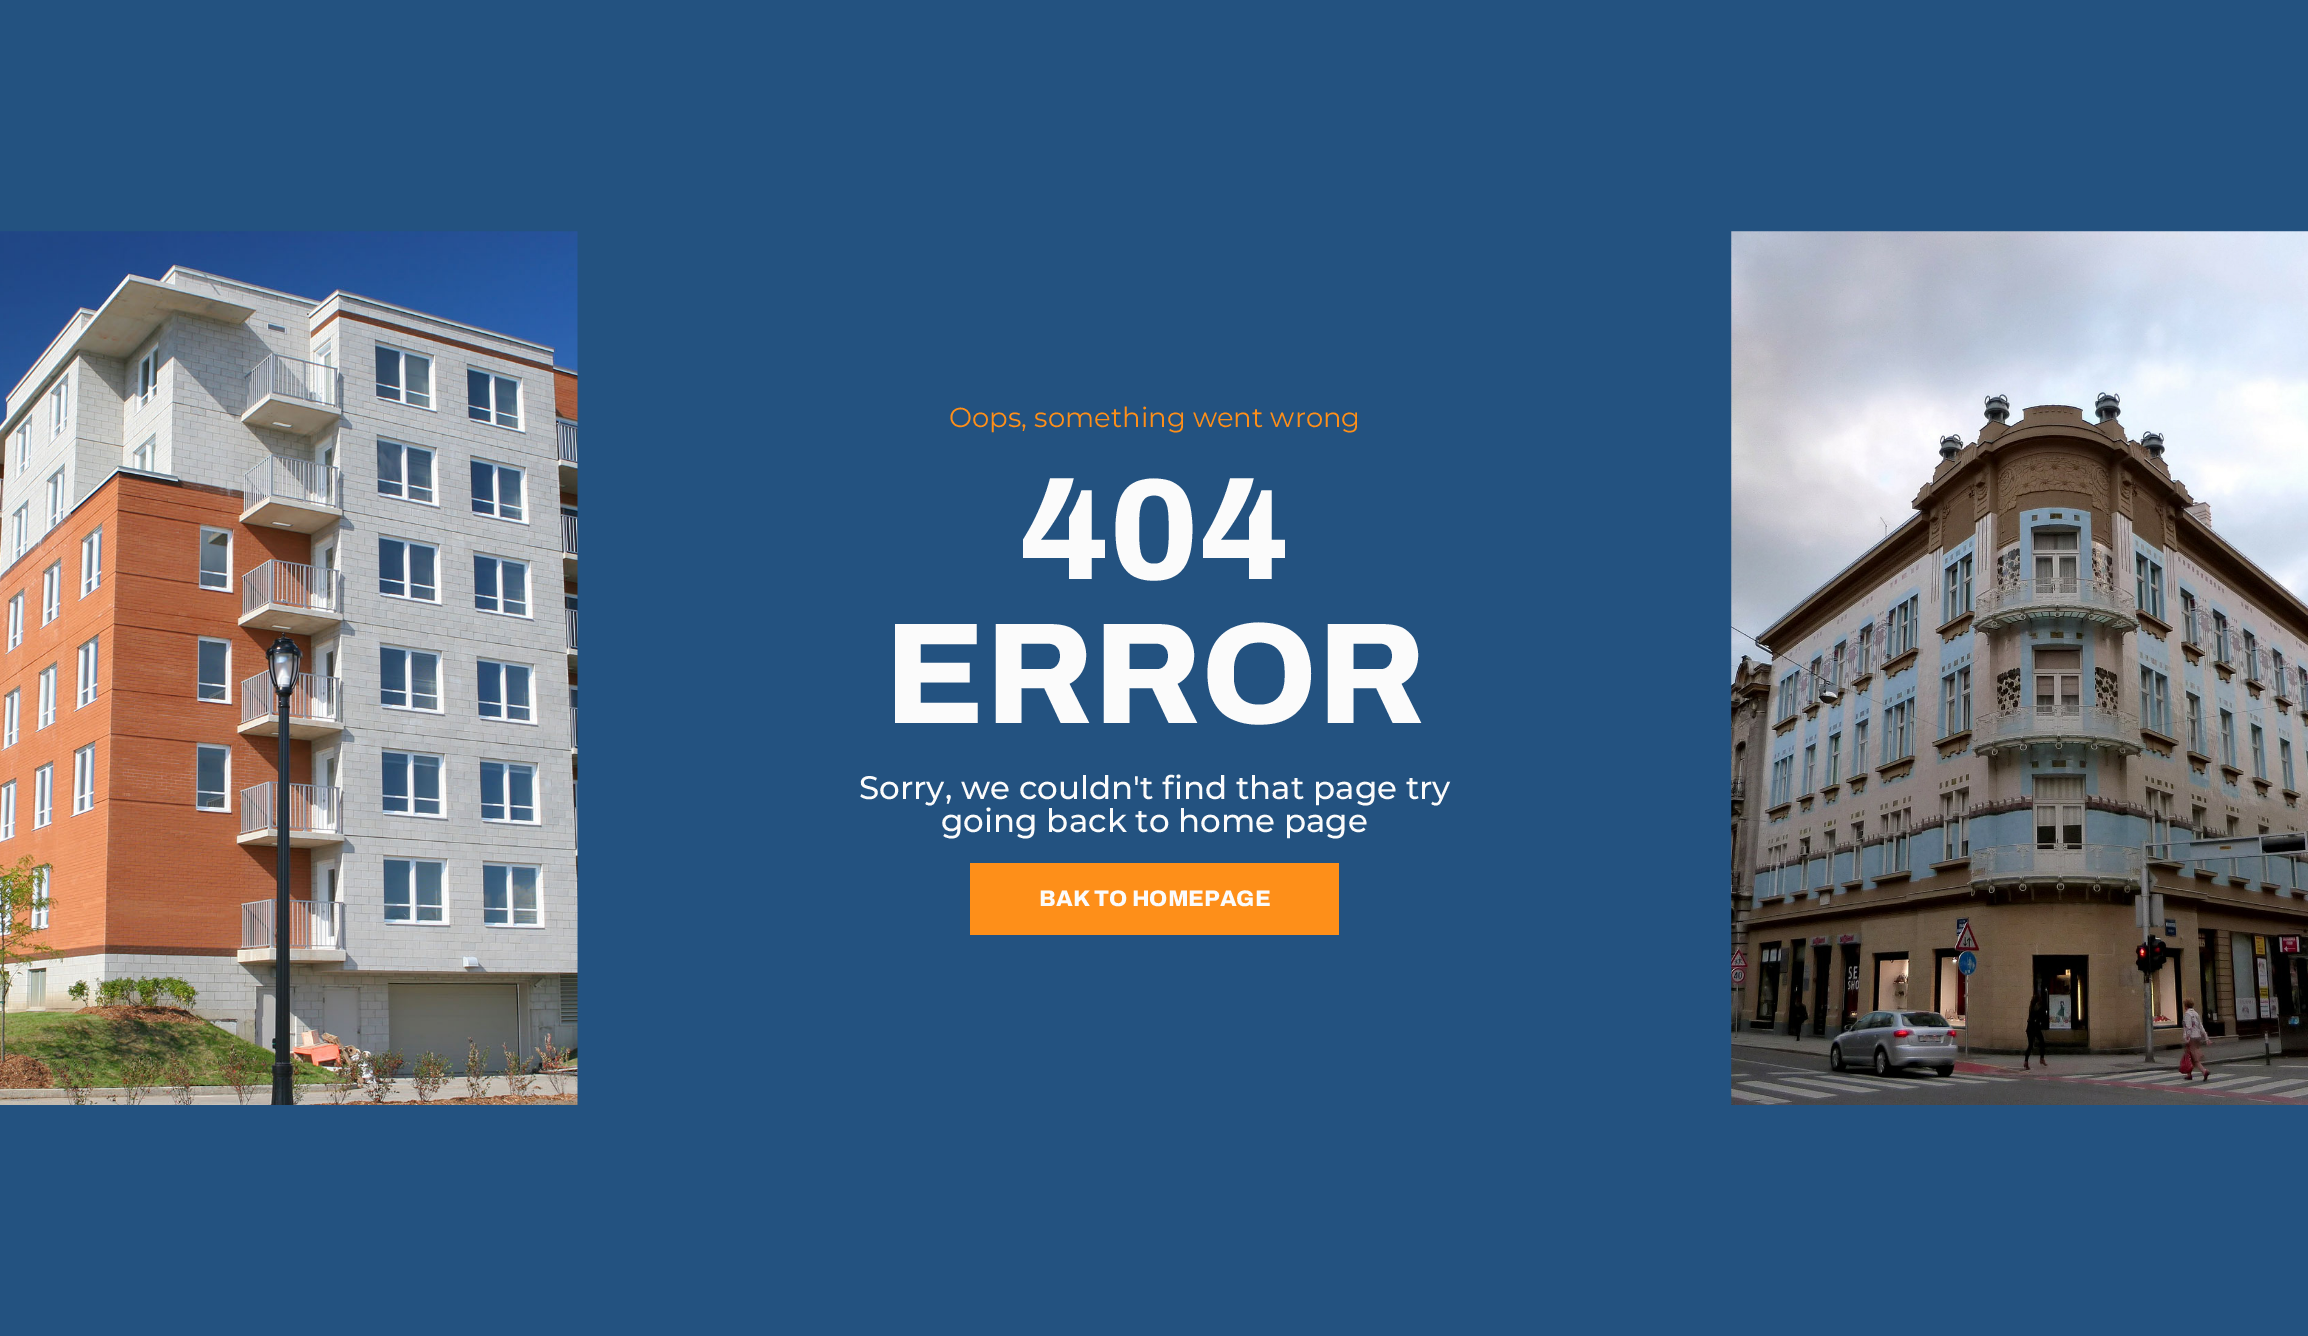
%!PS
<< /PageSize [2308 1336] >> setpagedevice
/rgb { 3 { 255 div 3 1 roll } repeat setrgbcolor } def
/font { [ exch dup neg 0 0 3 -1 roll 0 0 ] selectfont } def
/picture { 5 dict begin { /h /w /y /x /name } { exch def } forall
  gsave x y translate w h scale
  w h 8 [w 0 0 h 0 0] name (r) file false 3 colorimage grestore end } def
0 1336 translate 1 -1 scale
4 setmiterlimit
35 82 128 rgb
0 0 2308 1336 rectfill
(img/1.rgb) 0 231 578 874 picture
254 143 25 rgb
970 863 369 72 rectfill
(img/2.rgb) 1731 231 577 874 picture
/Montserrat-Regular 27.5 font
949 427 moveto (Oops, something went wrong) show
/Archivo-ExtraBold 144 font
251 251 251 rgb
1019 579 moveto (404) show
884 723 moveto (ERROR) show
/Montserrat-Medium 32.5 font
859 799 moveto (Sorry, we couldn't find that page try) show
941 832 moveto (going back to home page) show
/Archivo-ExtraBold 22.5 font
1039 906 moveto (BAK TO HOMEPAGE) show
showpage
